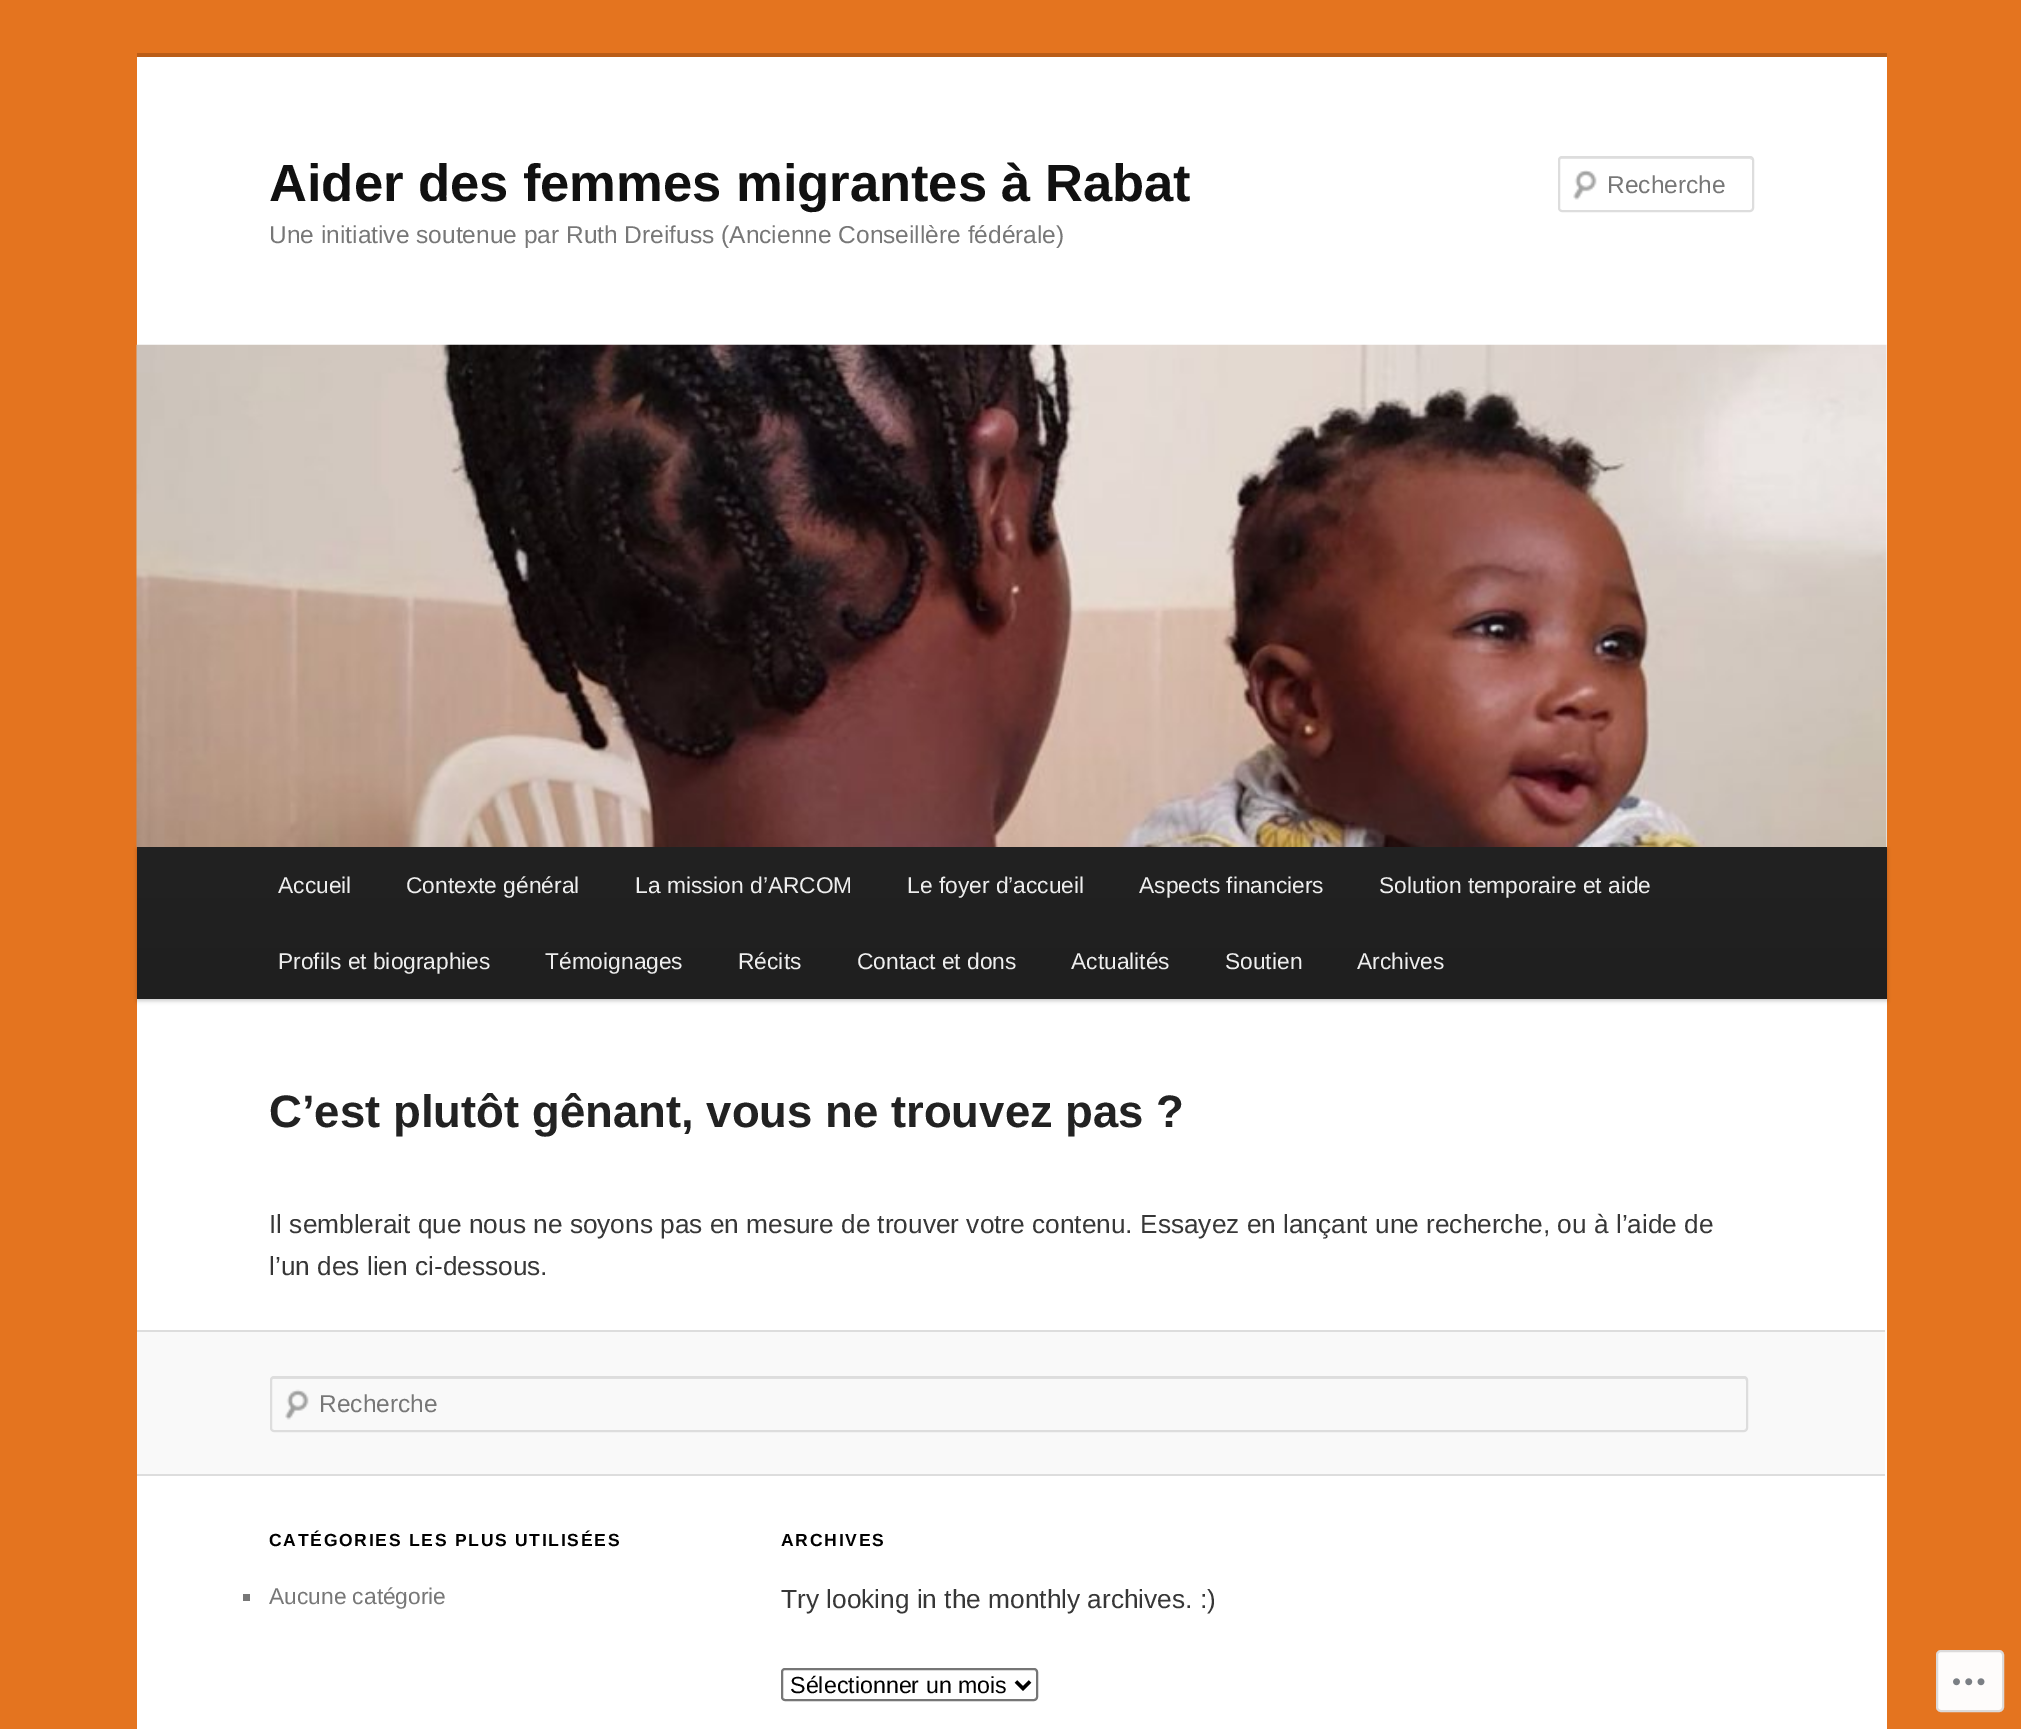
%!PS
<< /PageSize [2021 1729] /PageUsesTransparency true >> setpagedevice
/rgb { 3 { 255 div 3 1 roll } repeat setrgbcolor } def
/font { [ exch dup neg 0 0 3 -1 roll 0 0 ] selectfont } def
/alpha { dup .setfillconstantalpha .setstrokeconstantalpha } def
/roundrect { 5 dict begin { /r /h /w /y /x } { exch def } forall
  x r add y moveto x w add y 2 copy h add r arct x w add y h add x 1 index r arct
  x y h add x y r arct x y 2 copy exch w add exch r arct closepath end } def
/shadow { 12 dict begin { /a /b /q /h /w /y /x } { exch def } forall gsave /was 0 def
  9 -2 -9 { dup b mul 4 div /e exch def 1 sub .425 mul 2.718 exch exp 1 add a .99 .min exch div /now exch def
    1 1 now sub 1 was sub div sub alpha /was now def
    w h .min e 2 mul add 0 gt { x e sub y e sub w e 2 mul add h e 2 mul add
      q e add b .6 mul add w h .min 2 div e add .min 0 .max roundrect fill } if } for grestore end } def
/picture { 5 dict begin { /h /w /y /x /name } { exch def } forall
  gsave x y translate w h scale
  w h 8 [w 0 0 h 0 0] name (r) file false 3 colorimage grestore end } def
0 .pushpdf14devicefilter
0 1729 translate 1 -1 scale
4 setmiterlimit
228 116 31 rgb
0 0 2021 1729 rectfill
255 255 255 rgb
137 57 1750 1672 rectfill
186 93 23 rgb
137 53 1750 4 rectfill
(img/1.rgb) 1573 170 24 30 picture
230 230 230 rgb
1561 159 moveto 1750 159 lineto 1752 160 lineto 1752 161 lineto 1752 160 lineto 1752 159 1751 158 1750 158 curveto 1561 158 lineto 1560 158 1559 159 1559 160 curveto 1559 161 lineto 1559 160 1560 159 1561 159 curveto closepath fill
221 221 221 rgb
2 setlinewidth
1559 157 194 54 3 roundrect stroke
0 0 0 rgb
137 849 1750 152 0 2 0.2 shadow
(img/2.rgb) 136 344 1751 503 picture
gsave 137 847 moveto 1887 847 lineto 1887 999 lineto 137 999 lineto closepath clip newpath
<< /ShadingType 2 /ColorSpace /DeviceRGB /Coords [1012 847 1012 999] /Extend [true true] /Function << /FunctionType 2 /Domain [0 1] /C0 [0.133 0.133 0.133] /C1 [0.122 0.122 0.122] /N 1 >> >> shfill grestore
[
  [137 1332 1748 142 249 249 249]
  [137 1330 1748 2 221 221 221]
  [137 1474 1748 2 221 221 221]
] { aload pop rgb rectfill } forall
(img/3.rgb) 285 1389 24 31 picture
224 224 224 rgb
273 1379 moveto 1745 1379 lineto 1746 1379 1746 1380 1746 1381 curveto 1746 1430 lineto 1747 1429 1747 1429 1747 1428 curveto 1747 1379 lineto 1747 1378 1746 1377 1745 1377 curveto 273 1377 lineto 272 1377 271 1378 271 1379 curveto 271 1381 lineto 271 1380 272 1379 273 1379 curveto closepath fill
221 221 221 rgb
271 1377 1476 54 3 roundrect stroke
119 119 119 rgb
243 1594 7 7 rectfill
118 118 118 rgb
782 1669 255 31 3 roundrect stroke
0 0 0 rgb
3.5 setlinewidth
1016 1681.5 moveto 1023 1688.5 lineto 1030 1681.5 lineto stroke
254 252 251 rgb
1937 1651 66 60 4 roundrect gsave fill grestore
220 218 218 rgb
2 setlinewidth
stroke
(img/4.rgb) 1953 1678 32 8 picture
/LiberationSans-Bold 52.5 font
17 17 17 rgb
269 201 moveto (Aider des femmes migrantes à Rabat) show
/LiberationSans-Regular 24.5 font
119 119 119 rgb
269 243 moveto (Une initiative soutenue par Ruth Dreifuss \(Ancienne Conseillère fédérale\)) show
1607 193 moveto (Recherche) show
/LiberationSans-Regular 22.75 font
238 238 238 rgb
[
  [(Accueil) 278 893]
  [(Contexte général) 406 893]
  [(La mission d’ARCOM) 635 893]
  [(Le foyer d’accueil) 907 893]
  [(Aspects financiers) 1139 893]
  [(Solution temporaire et aide) 1379 893]
  [(Profils et biographies) 278 969]
  [(Témoignages) 545 969]
  [(Récits) 738 969]
  [(Contact et dons) 857 969]
  [(Actualités) 1071 969]
  [(Soutien) 1225 969]
  [(Archives) 1357 969]
] { aload pop moveto show } forall
/LiberationSans-Bold 45.5 font
34 34 34 rgb
269 1127 moveto (C’est plutôt gênant, vous ne trouvez pas ?) show
/LiberationSans-Regular 26.25 font
55 55 55 rgb
269 1233 moveto (Il semblerait que nous ne soyons pas en mesure de trouver votre contenu. Essayez en lançant une recherche, ou à l’aide de) show
269 1275 moveto (l’un des lien ci-dessous.) show
/LiberationSans-Regular 24.5 font
119 119 119 rgb
319 1412 moveto (Recherche) show
/LiberationSans-Bold 17.5 font
0 0 0 rgb
269 1546 moveto 1.75 0 (CATÉGORIES LES PLUS UTILISÉES) ashow
/LiberationSans-Regular 22.75 font
119 119 119 rgb
269 1604 moveto (Aucune catégorie) show
/LiberationSans-Bold 17.5 font
0 0 0 rgb
781 1546 moveto 1.75 0 (ARCHIVES) ashow
/LiberationSans-Regular 26.25 font
55 55 55 rgb
781 1608 moveto (Try looking in the monthly archives. :\)) show
/LiberationSans-Regular 23.25 font
0 0 0 rgb
790 1693 moveto (Sélectionner un mois) show
.poppdf14devicefilter showpage
